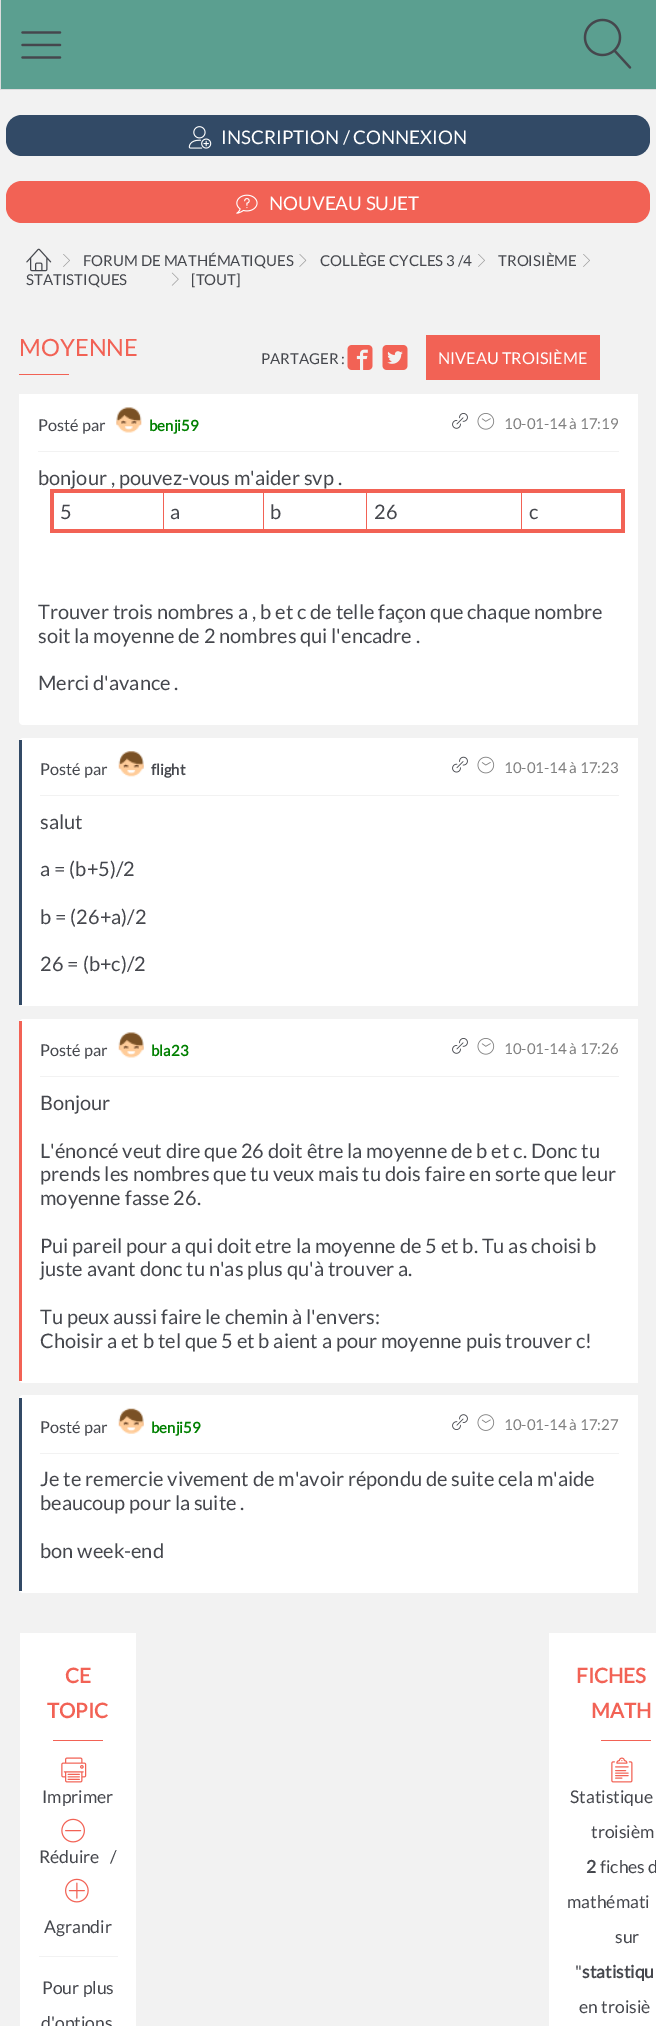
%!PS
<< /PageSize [658 2026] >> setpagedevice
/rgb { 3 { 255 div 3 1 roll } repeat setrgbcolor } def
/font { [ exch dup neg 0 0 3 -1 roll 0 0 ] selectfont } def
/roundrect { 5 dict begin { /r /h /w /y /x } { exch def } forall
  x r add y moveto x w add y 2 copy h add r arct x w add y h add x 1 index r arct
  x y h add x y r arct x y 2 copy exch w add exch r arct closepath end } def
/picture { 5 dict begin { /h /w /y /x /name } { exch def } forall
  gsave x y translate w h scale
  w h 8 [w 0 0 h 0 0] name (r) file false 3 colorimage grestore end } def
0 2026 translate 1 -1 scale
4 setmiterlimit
255 255 255 rgb
0 0 658 2026 rectfill
[
  [0 90 656 1936 242 242 242]
  [1 0 655 89 91 159 144]
  [0 0 1 89 220 220 221]
  [0 89 656 1 220 220 221]
] { aload pop rgb rectfill } forall
(img/1.rgb) 21 31 41 28 picture
(img/2.rgb) 583 18 49 51 picture
50 74 102 rgb
6 115 644 41 16 roundrect fill
(img/3.rgb) 188 126 24 23 picture
242 98 85 rgb
6 181 644 42 16 roundrect fill
(img/4.rgb) 236 194 22 20 picture
(img/5.rgb) 26 248 26 24 picture
(img/6.rgb) 63 254 7 13 picture
(img/7.rgb) 299 254 8 13 picture
(img/6.rgb) 478 254 7 13 picture
(img/6.rgb) 583 254 7 13 picture
(img/8.rgb) 171 272 8 14 picture
255 255 255 rgb
23 301 moveto 638 301 lineto 638 725 lineto 23 725 lineto 21 725 19 723 19 721 curveto 19 305 lineto 19 303 21 301 23 301 curveto closepath fill
242 242 242 rgb
19 301 619 93 rectfill
242 98 85 rgb
19 374 50 1 rectfill
(img/9.rgb) 347 345 26 25 picture
(img/10.rgb) 382 345 26 25 picture
426 335 174 45 rectfill
242 242 242 rgb
38 451 581 1 rectfill
(img/11.rgb) 116 407 26 26 picture
(img/12.rgb) 452 413 16 16 picture
(img/13.rgb) 477 413 18 17 picture
[
  [163 490 1 41 242 98 85]
  [263 490 1 41 242 98 85]
  [366 490 1 41 242 98 85]
  [521 490 1 41 242 98 85]
  [50 489 575 4 242 98 85]
  [621 489 4 44 242 98 85]
  [50 529 575 4 242 98 85]
  [50 489 4 44 242 98 85]
] { aload pop rgb rectfill } forall
255 255 255 rgb
23 738 moveto 638 738 lineto 638 1006 lineto 23 1006 lineto 21 1006 19 1004 19 1002 curveto 19 742 lineto 19 740 21 738 23 738 curveto closepath fill
50 74 102 rgb
19 740 3 265 rectfill
242 242 242 rgb
40 795 579 1 rectfill
(img/14.rgb) 118 751 26 26 picture
(img/15.rgb) 452 756 16 17 picture
(img/16.rgb) 477 756 18 18 picture
255 255 255 rgb
23 1019 moveto 638 1019 lineto 638 1383 lineto 23 1383 lineto 21 1383 19 1381 19 1379 curveto 19 1023 lineto 19 1021 21 1019 23 1019 curveto closepath fill
242 98 85 rgb
19 1021 3 360 rectfill
242 242 242 rgb
40 1076 579 1 rectfill
(img/17.rgb) 118 1032 26 26 picture
(img/12.rgb) 452 1038 16 16 picture
(img/13.rgb) 477 1038 18 17 picture
255 255 255 rgb
23 1395 moveto 638 1395 lineto 638 1593 lineto 23 1593 lineto 21 1593 19 1591 19 1589 curveto 19 1399 lineto 19 1397 21 1395 23 1395 curveto closepath fill
50 74 102 rgb
19 1398 3 193 rectfill
242 242 242 rgb
40 1453 579 1 rectfill
(img/18.rgb) 118 1408 26 26 picture
(img/19.rgb) 452 1414 16 16 picture
(img/20.rgb) 477 1414 18 17 picture
255 255 255 rgb
20 1633 116 393 rectfill
242 98 85 rgb
53 1740 50 1 rectfill
(img/21.rgb) 61 1757 26 26 picture
(img/22.rgb) 61 1818 24 25 picture
(img/23.rgb) 65 1878 24 25 picture
[
  [39 1956 79 1 242 242 242]
  [549 1633 107 393 255 255 255]
  [601 1740 50 1 242 98 85]
] { aload pop rgb rectfill } forall
(img/24.rgb) 611 1757 22 26 picture
/Lato-Regular 18.75 font
255 255 255 rgb
221 144 moveto (INSCRIPTION / CONNEXION) show
269 210 moveto (NOUVEAU SUJET) show
/Lato-Regular 15 font
69 71 77 rgb
[
  [(FORUM DE MATHÉMATIQUES) 83 266]
  [(COLLÈGE CYCLES 3 /4) 320 266]
  [(TROISIÈME) 498 266]
  [(STATISTIQUES) 26 285]
  [([TOUT]) 191 285]
] { aload pop moveto show } forall
/Lato-Regular 23.75 font
242 98 85 rgb
19 356 moveto (MOYENNE) show
/Lato-Regular 15 font
69 71 77 rgb
261 364 moveto (PARTAGER :) show
/Lato-Regular 16.25 font
255 255 255 rgb
438 364 moveto (NIVEAU TROISIÈME) show
69 71 77 rgb
38 431 moveto (Posté par) show
/Lato-Bold 15 font
0 128 0 rgb
149 431 moveto (benji59) show
/Lato-Regular 15 font
127 127 127 rgb
504 429 moveto (10-01-14 à 17:19) show
/Lato-Regular 20 font
69 71 77 rgb
[
  [(bonjour , pouvez-vous m'aider svp .) 38 485]
  [(5) 60 519]
  [(a) 170 519]
  [(b) 270 519]
  [(26) 374 519]
  [(c) 529 519]
  [(Trouver trois nombres a , b et c de telle façon que chaque nombre) 38 619]
  [(soit la moyenne de 2 nombres qui l'encadre .) 38 643]
  [(Merci d'avance .) 38 690]
] { aload pop moveto show } forall
/Lato-Regular 16.25 font
40 775 moveto (Posté par) show
/Lato-Bold 15 font
151 775 moveto (flight) show
/Lato-Regular 15 font
127 127 127 rgb
504 773 moveto (10-01-14 à 17:23) show
/Lato-Regular 20 font
69 71 77 rgb
[
  [(salut) 40 829]
  [(a = \(b+5\)/2) 40 876]
  [(b = \(26+a\)/2) 40 924]
  [(26 = \(b+c\)/2) 40 971]
] { aload pop moveto show } forall
/Lato-Regular 16.25 font
40 1056 moveto (Posté par) show
/Lato-Bold 15 font
0 128 0 rgb
151 1056 moveto (bla23) show
/Lato-Regular 15 font
127 127 127 rgb
504 1054 moveto (10-01-14 à 17:26) show
/Lato-Regular 20 font
69 71 77 rgb
[
  [(Bonjour) 40 1110]
  [(L'énoncé veut dire que 26 doit être la moyenne de b et c. Donc tu) 40 1158]
  [(prends les nombres que tu veux mais tu dois faire en sorte que leur) 40 1181]
  [(moyenne fasse 26.) 40 1205]
  [(Pui pareil pour a qui doit etre la moyenne de 5 et b. Tu as choisi b) 40 1253]
  [(juste avant donc tu n'as plus qu'à trouver a.) 40 1276]
  [(Tu peux aussi faire le chemin à l'envers:) 40 1324]
  [(Choisir a et b tel que 5 et b aient a pour moyenne puis trouver c!) 40 1348]
] { aload pop moveto show } forall
/Lato-Regular 16.25 font
40 1433 moveto (Posté par) show
/Lato-Bold 15 font
0 128 0 rgb
151 1433 moveto (benji59) show
/Lato-Regular 15 font
127 127 127 rgb
504 1430 moveto (10-01-14 à 17:27) show
/Lato-Regular 20 font
69 71 77 rgb
[
  [(Je te remercie vivement de m'avoir répondu de suite cela m'aide) 40 1486]
  [(beaucoup pour la suite .) 40 1510]
  [(bon week-end) 40 1558]
] { aload pop moveto show } forall
/Lato-Bold 20.5 font
242 98 85 rgb
65 1683 moveto (CE) show
47 1718 moveto (TOPIC) show
/Lato-Regular 17.5 font
69 71 77 rgb
[
  [(Imprimer) 42 1803]
  [(Réduire) 39 1863]
  [(/) 110 1863]
  [(Agrandir) 44 1933]
  [(Pour plus) 42 1994]
  [(d'options) 41 2029]
] { aload pop moveto show } forall
/Lato-Bold 20.5 font
242 98 85 rgb
576 1683 moveto (FICHES) show
591 1718 moveto (MATH) show
/Lato-Regular 17.5 font
69 71 77 rgb
570 1803 moveto (Statistique) show
591 1838 moveto (troisièm) show
/Lato-Bold 17.5 font
586 1873 moveto (2) show
gsave
0 0 656 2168 rectclip
/Lato-Regular 17.5 font
600 1873 moveto (fiches d) show
grestore
/Lato-Regular 17.5 font
[
  [(mathémati) 567 1908]
  [(sur) 615 1943]
  [(") 575 1978]
] { aload pop moveto show } forall
/Lato-Bold 17.5 font
582 1978 moveto (statistiqu) show
/Lato-Regular 17.5 font
579 2013 moveto (en troisiè) show
showpage
